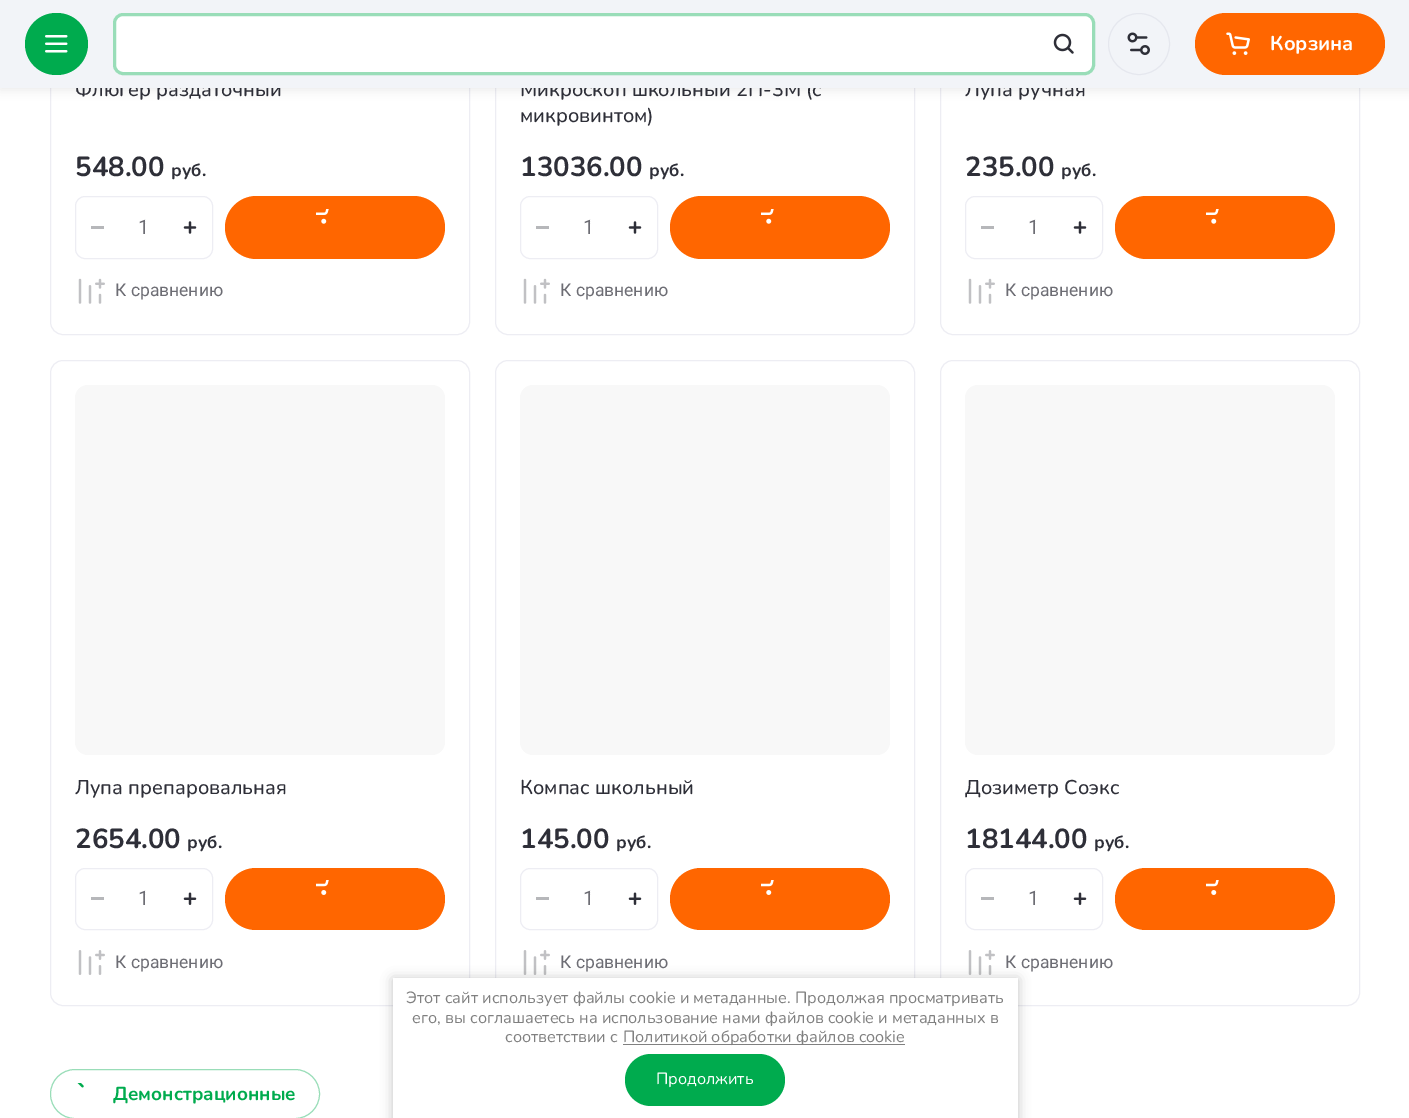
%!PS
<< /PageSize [1409 1118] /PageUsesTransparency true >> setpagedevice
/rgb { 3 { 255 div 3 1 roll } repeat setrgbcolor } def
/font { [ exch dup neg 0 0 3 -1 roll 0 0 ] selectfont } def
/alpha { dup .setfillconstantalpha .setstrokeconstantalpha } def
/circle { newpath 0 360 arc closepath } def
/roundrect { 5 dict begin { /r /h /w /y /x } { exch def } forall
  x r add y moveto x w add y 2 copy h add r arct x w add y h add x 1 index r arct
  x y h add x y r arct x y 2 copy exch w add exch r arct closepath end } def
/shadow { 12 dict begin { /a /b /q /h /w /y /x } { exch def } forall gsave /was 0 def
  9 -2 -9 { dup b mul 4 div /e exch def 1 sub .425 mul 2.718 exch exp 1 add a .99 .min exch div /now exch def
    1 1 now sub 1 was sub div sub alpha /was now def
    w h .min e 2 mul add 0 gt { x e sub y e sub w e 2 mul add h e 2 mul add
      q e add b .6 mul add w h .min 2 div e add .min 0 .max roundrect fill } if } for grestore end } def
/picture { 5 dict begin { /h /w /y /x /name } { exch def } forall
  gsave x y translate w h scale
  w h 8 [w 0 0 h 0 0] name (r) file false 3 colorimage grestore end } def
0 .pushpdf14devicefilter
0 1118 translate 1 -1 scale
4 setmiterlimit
255 255 255 rgb
0 0 1409 1118 rectfill
237 237 243 rgb
50.5 -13.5 419 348 12.5 roundrect stroke
495.5 -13.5 419 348 12.5 roundrect stroke
940.5 -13.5 419 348 12.5 roundrect stroke
0 0 0 rgb
0 3 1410 87 0 5 0.08 shadow
237 237 243 rgb
75.5 196.5 137 62 9.5 roundrect stroke
182 183 186 rgb
91 226 13 3 rectfill
(img/5.rgb) 183 221 14 13 picture
255 102 0 rgb
225 196 220 63 31.5 roundrect fill
(img/6.rgb) 316 209 13 15 picture
(img/7.rgb) 78 278 27 26 picture
237 237 243 rgb
520.5 196.5 137 62 9.5 roundrect stroke
182 183 186 rgb
536 226 13 3 rectfill
(img/5.rgb) 628 221 14 13 picture
255 102 0 rgb
670 196 220 63 31.5 roundrect fill
(img/6.rgb) 761 209 13 15 picture
(img/7.rgb) 523 278 27 26 picture
237 237 243 rgb
965.5 196.5 137 62 9.5 roundrect stroke
182 183 186 rgb
981 226 13 3 rectfill
(img/5.rgb) 1073 221 14 13 picture
255 102 0 rgb
1115 196 220 63 31.5 roundrect fill
(img/6.rgb) 1206 209 13 15 picture
(img/7.rgb) 968 278 27 26 picture
237 237 243 rgb
50.5 360.5 419 645 12.5 roundrect stroke
248 248 248 rgb
75 385 370 370 13 roundrect fill
237 237 243 rgb
75.5 868.5 137 61 9.5 roundrect stroke
182 183 186 rgb
91 897 13 3 rectfill
(img/8.rgb) 183 892 14 13 picture
255 102 0 rgb
225 868 220 62 31 roundrect fill
(img/9.rgb) 316 880 13 15 picture
(img/10.rgb) 78 950 27 25 picture
237 237 243 rgb
495.5 360.5 419 645 12.5 roundrect stroke
248 248 248 rgb
520 385 370 370 13 roundrect fill
237 237 243 rgb
520.5 868.5 137 61 9.5 roundrect stroke
182 183 186 rgb
536 897 13 3 rectfill
(img/8.rgb) 628 892 14 13 picture
255 102 0 rgb
670 868 220 62 31 roundrect fill
(img/9.rgb) 761 880 13 15 picture
(img/10.rgb) 523 950 27 25 picture
237 237 243 rgb
940.5 360.5 419 645 12.5 roundrect stroke
248 248 248 rgb
965 385 370 370 13 roundrect fill
237 237 243 rgb
965.5 868.5 137 61 9.5 roundrect stroke
182 183 186 rgb
981 897 13 3 rectfill
(img/8.rgb) 1073 892 14 13 picture
255 102 0 rgb
1115 868 220 62 31 roundrect fill
(img/9.rgb) 1206 880 13 15 picture
(img/10.rgb) 968 950 27 25 picture
153 221 184 rgb
50.5 1069.5 269 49 24.5 roundrect stroke
(img/11.rgb) 77 1083 7 5 picture
0 0 0 rgb
393 979 625 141 0 6 0.23 shadow
255 255 255 rgb
393 978 625 140 rectfill
128 128 128 rgb
623 1044 282 1 rectfill
0 171 78 rgb
625 1054 160 52 26 roundrect fill
/Nunito-Medium 20 font
46 47 56 rgb
75 96 moveto (Флюгер раздаточный) show
/Nunito-Bold 27.5 font
75 176 moveto (548.00) show
/Nunito-Bold 17.5 font
171 176 moveto (руб.) show
/Roboto-Regular 20 font
109 109 116 rgb
138 234 moveto (1) show
/Roboto-Regular 17.5 font
115 296 moveto (К сравнению) show
/Nunito-Medium 20 font
46 47 56 rgb
520 96 moveto (Микроскоп школьный 2П-3М \(с) show
520 122 moveto (микровинтом\)) show
/Nunito-Bold 27.5 font
520 176 moveto (13036.00) show
/Nunito-Bold 17.5 font
649 176 moveto (руб.) show
/Roboto-Regular 20 font
109 109 116 rgb
583 234 moveto (1) show
/Roboto-Regular 17.5 font
560 296 moveto (К сравнению) show
/Nunito-Medium 20 font
46 47 56 rgb
965 96 moveto (Лупа ручная) show
242 244 248 rgb
0 0 1409 88 rectfill
229 231 238 rgb
1139 44 30.5 circle stroke
(img/3.rgb) 1127 32 23 23 picture
255 255 255 rgb
113 13 982 62 10 roundrect fill
0.4 alpha
0 171 78 rgb
3 setlinewidth
114.5 14.5 979 59 8.5 roundrect stroke
1 alpha
(img/2.rgb) 1053 33 21 21 picture
255 102 0 rgb
1195 13 190 62 31 roundrect fill
(img/4.rgb) 1226 32 24 23 picture
/Nunito-Bold 20 font
255 255 255 rgb
1270 50 moveto (Корзина) show
0 171 78 rgb
25 13 63 62 31 roundrect fill
(img/1.rgb) 45 35 23 18 picture
/Nunito-Bold 27.5 font
46 47 56 rgb
965 176 moveto (235.00) show
/Nunito-Bold 17.5 font
1061 176 moveto (руб.) show
/Roboto-Regular 20 font
109 109 116 rgb
1028 234 moveto (1) show
/Roboto-Regular 17.5 font
1005 296 moveto (К сравнению) show
/Nunito-Medium 20 font
46 47 56 rgb
75 794 moveto (Лупа препаровальная) show
/Nunito-Bold 27.5 font
75 848 moveto (2654.00) show
/Nunito-Bold 17.5 font
187 848 moveto (руб.) show
/Roboto-Regular 20 font
109 109 116 rgb
138 905 moveto (1) show
/Roboto-Regular 17.5 font
115 968 moveto (К сравнению) show
/Nunito-Medium 20 font
46 47 56 rgb
520 794 moveto (Компас школьный) show
/Nunito-Bold 27.5 font
520 848 moveto (145.00) show
/Nunito-Bold 17.5 font
616 848 moveto (руб.) show
/Roboto-Regular 20 font
109 109 116 rgb
583 905 moveto (1) show
/Roboto-Regular 17.5 font
560 968 moveto (К сравнению) show
/Nunito-Medium 20 font
46 47 56 rgb
965 794 moveto (Дозиметр Соэкс) show
/Nunito-Bold 27.5 font
965 848 moveto (18144.00) show
/Nunito-Bold 17.5 font
1094 848 moveto (руб.) show
/Roboto-Regular 20 font
109 109 116 rgb
1028 905 moveto (1) show
/Roboto-Regular 17.5 font
1005 968 moveto (К сравнению) show
/Nunito-Bold 18.75 font
0 171 78 rgb
113 1100 moveto (Демонстрационные) show
/Nunito-Regular 16.25 font
128 128 128 rgb
[
  [(Этот сайт использует файлы cookie и метаданные. Продолжая просматривать) 406 1003]
  [(его, вы соглашаетесь на использование нами файлов cookie и метаданных в) 412 1023]
  [(соответствии с) 505 1042]
  [(Политикой обработки файлов cookie) 623 1042]
] { aload pop moveto show } forall
255 255 255 rgb
656 1084 moveto (Продолжить) show
.poppdf14devicefilter showpage
